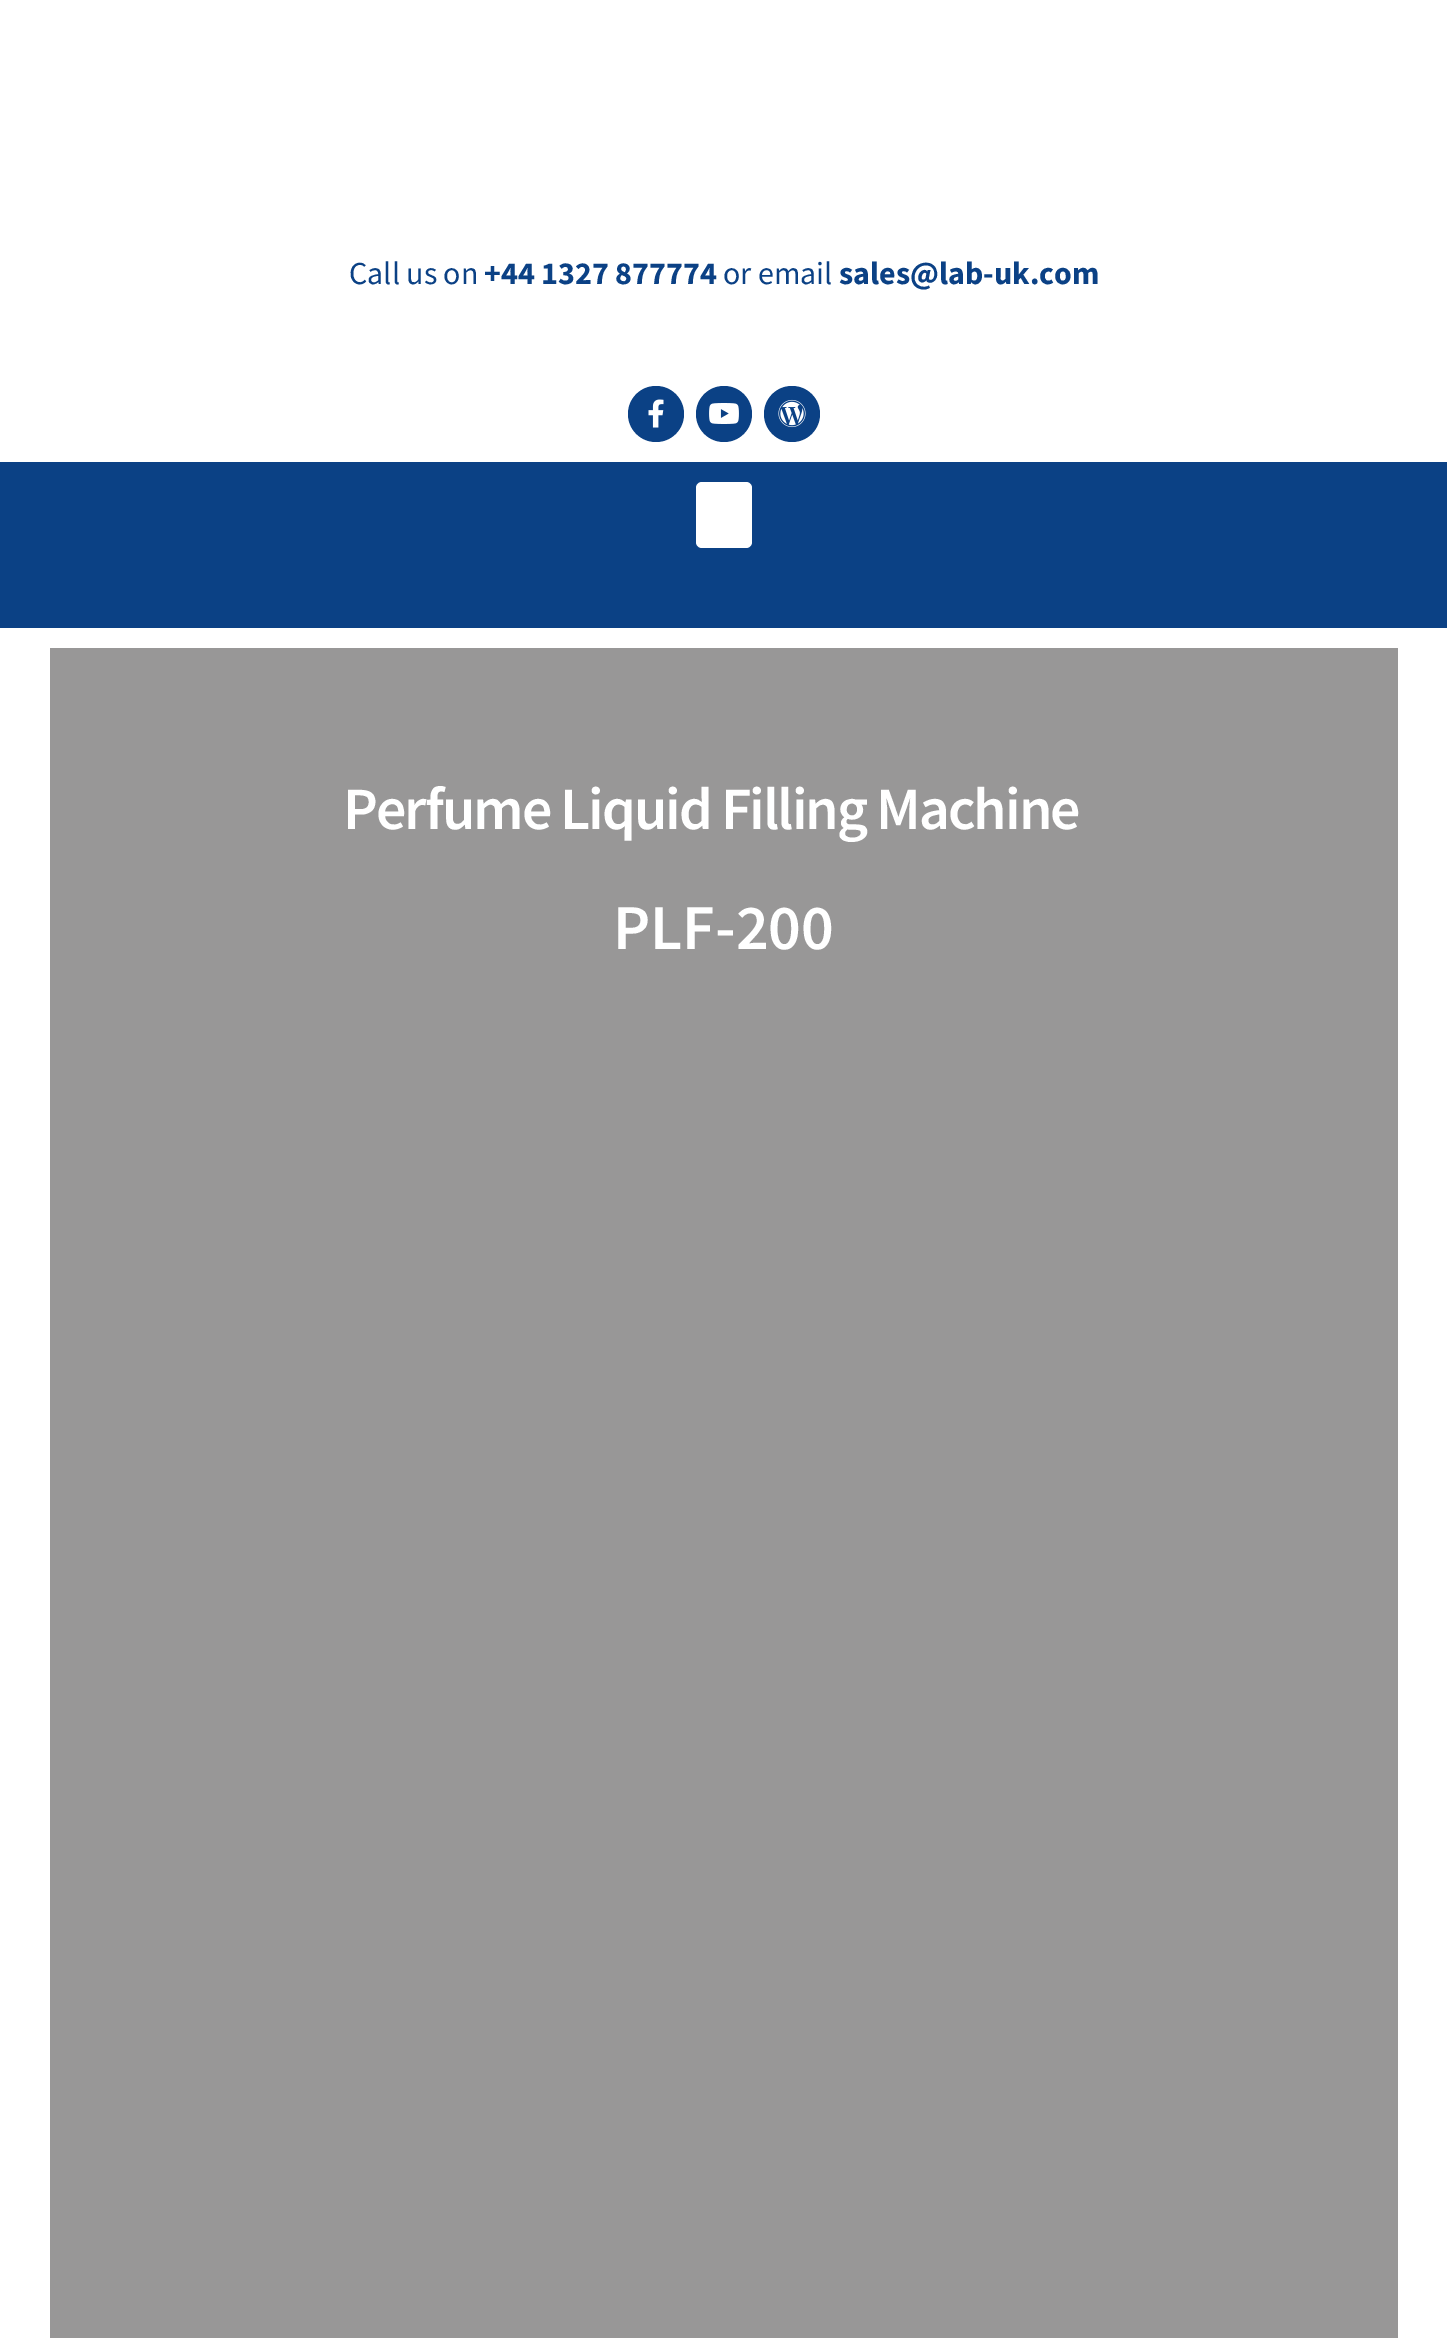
%!PS
<< /PageSize [1447 2338] >> setpagedevice
/rgb { 3 { 255 div 3 1 roll } repeat setrgbcolor } def
/font { [ exch dup neg 0 0 3 -1 roll 0 0 ] selectfont } def
/circle { newpath 0 360 arc closepath } def
/roundrect { 5 dict begin { /r /h /w /y /x } { exch def } forall
  x r add y moveto x w add y 2 copy h add r arct x w add y h add x 1 index r arct
  x y h add x y r arct x y 2 copy exch w add exch r arct closepath end } def
/picture { 5 dict begin { /h /w /y /x /name } { exch def } forall
  gsave x y translate w h scale
  w h 8 [w 0 0 h 0 0] name (r) file false 3 colorimage grestore end } def
0 2338 translate 1 -1 scale
4 setmiterlimit
255 255 255 rgb
0 0 1447 2338 rectfill
11 65 133 rgb
656 414 28 circle fill
(img/1.rgb) 648 399 16 29 picture
724 414 28 circle fill
(img/2.rgb) 709 403 30 21 picture
792 414 28 circle fill
(img/3.rgb) 778 399 28 29 picture
0 462 1447 166 rectfill
255 255 255 rgb
696 482 56 66 6 roundrect fill
152 151 151 rgb
50 648 1348 1690 rectfill
/SourceSansPro-Regular 32 font
11 65 133 rgb
349 284 moveto (Call us on) show
/SourceSansPro-Bold 32 font
484 284 moveto (+44 1327 877774) show
/SourceSansPro-Regular 32 font
723 284 moveto (or email) show
/SourceSansPro-Bold 32 font
839 284 moveto (sales@lab-uk.com) show
/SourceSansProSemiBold-SemiBold 60 font
255 255 255 rgb
343 829 moveto -2 0 (Perfume Liquid Filling Machine) ashow
/SourceSansProSemiBold-SemiBold 64 font
613 949 moveto (PLF-200) show
showpage
